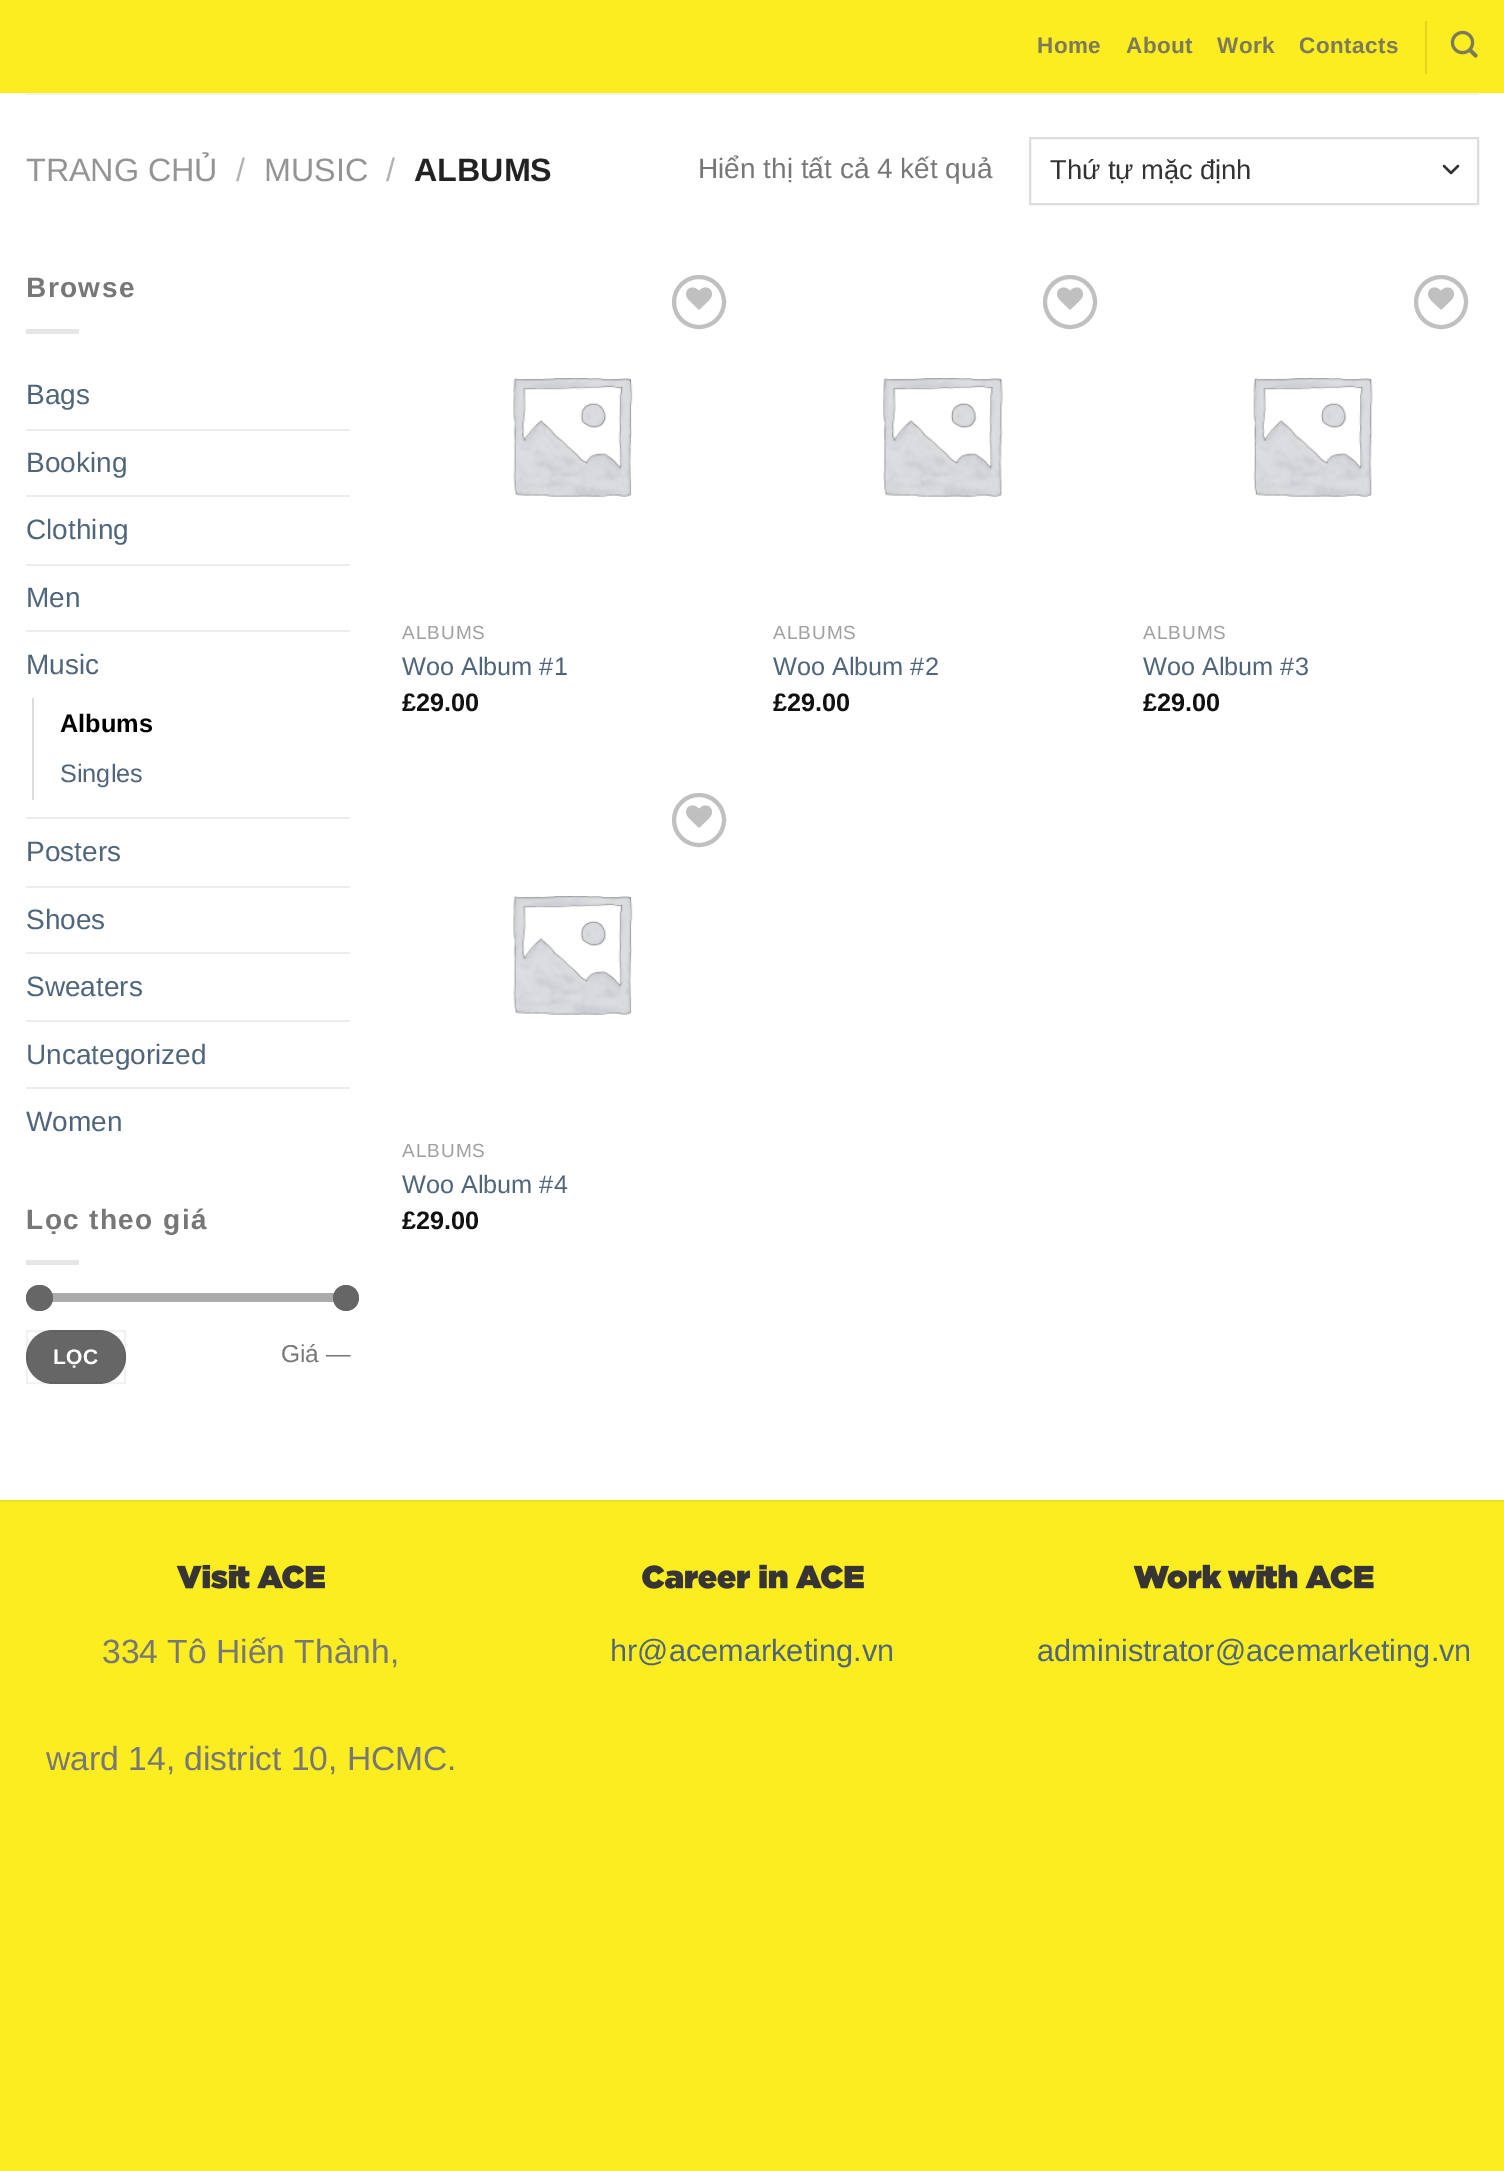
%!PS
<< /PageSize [1504 2171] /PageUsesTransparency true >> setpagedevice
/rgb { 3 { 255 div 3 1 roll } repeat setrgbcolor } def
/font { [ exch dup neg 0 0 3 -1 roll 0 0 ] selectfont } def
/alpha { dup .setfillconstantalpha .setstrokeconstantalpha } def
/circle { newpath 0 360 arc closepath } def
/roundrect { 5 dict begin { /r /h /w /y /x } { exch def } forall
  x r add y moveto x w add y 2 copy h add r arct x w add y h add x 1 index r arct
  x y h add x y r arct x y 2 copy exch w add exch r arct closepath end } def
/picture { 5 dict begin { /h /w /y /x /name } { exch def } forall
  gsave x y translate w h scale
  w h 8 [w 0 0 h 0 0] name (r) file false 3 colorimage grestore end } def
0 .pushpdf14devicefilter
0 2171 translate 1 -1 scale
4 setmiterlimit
255 255 255 rgb
0 0 1504 2171 rectfill
251 237 31 rgb
0 0 1504 93 rectfill
226 213 28 rgb
1425 21 2 53 rectfill
(img/1.rgb) 1450 30 28 28 picture
241 241 241 rgb
26 93 1453 2 rectfill
51 51 51 rgb
2.3 setlinewidth
1 setlinecap
1 setlinejoin
1444 166 moveto 1451 173 lineto 1458 166 lineto stroke
221 221 221 rgb
2 setlinewidth
0 setlinecap
0 setlinejoin
1030 138 448 66 rectstroke
[
  [26 329 53 5 230 230 230]
  [26 429 324 2 236 236 236]
  [26 495 324 2 236 236 236]
  [26 564 324 2 236 236 236]
  [26 630 324 2 236 236 236]
  [32 698 2 102 221 221 221]
  [26 817 324 2 236 236 236]
  [26 886 324 2 236 236 236]
  [26 952 324 2 236 236 236]
  [26 1020 324 2 236 236 236]
  [26 1087 324 2 236 236 236]
  [26 1260 53 5 230 230 230]
] { aload pop rgb rectfill } forall
241 241 241 rgb
26 1293 324 9 4.5 roundrect fill
0.5 alpha
102 102 102 rgb
26 1293 324 9 4.5 roundrect fill
1 alpha
26 1285 27 26 13 roundrect fill
346 1298 13 circle fill
26 1330 100 54 27 roundrect fill
0.05 alpha
0 0 0 rgb
27 1331 98 52 rectstroke
1 alpha
192 192 192 rgb
4 setlinewidth
699 302 25 circle stroke
(img/2.rgb) 686 287 26 23 picture
(img/3.rgb) 513 378 120 119 picture
1070 302 25 circle stroke
(img/2.rgb) 1057 287 26 23 picture
(img/4.rgb) 883 378 120 119 picture
1441 302 25 circle stroke
(img/2.rgb) 1428 287 26 23 picture
(img/5.rgb) 1253 378 120 119 picture
699 820 25 circle stroke
(img/2.rgb) 686 805 26 23 picture
(img/6.rgb) 513 896 120 119 picture
251 237 31 rgb
0 1502 1504 669 rectfill
238 225 29 rgb
0 1500 1504 2 rectfill
(img/7.rgb) 176 1564 149 25 picture
(img/8.rgb) 642 1564 222 25 picture
(img/9.rgb) 1133 1564 241 25 picture
/LiberationSans-Bold 22.5 font
124 122 91 rgb
1037 53 moveto 0.5 0 (Home) ashow
1126 53 moveto 0.5 0 (About) ashow
1217 53 moveto 0.5 0 (Work) ashow
1299 53 moveto 0.5 0 (Contacts) ashow
/LiberationSans-Regular 32.25 font
148 148 148 rgb
26 181 moveto (TRANG CHỦ) show
178 178 178 rgb
236 181 moveto (/) show
148 148 148 rgb
264 181 moveto (MUSIC) show
178 178 178 rgb
386 181 moveto (/) show
/LiberationSans-Bold 32.25 font
34 34 34 rgb
414 181 moveto (ALBUMS) show
/LiberationSans-Regular 28 font
119 119 119 rgb
698 178 moveto (Hiển thị tất cả 4 kết quả) show
/LiberationSans-Regular 27.25 font
51 51 51 rgb
1050 179 moveto (Thứ tự mặc định) show
/LiberationSans-Bold 28 font
119 119 119 rgb
26 297 moveto 1.4 0 (Browse) ashow
/LiberationSans-Regular 28 font
78 101 123 rgb
[
  [(Bags) 26 404]
  [(Booking) 26 472]
  [(Clothing) 26 539]
  [(Men) 26 607]
  [(Music) 26 674]
] { aload pop moveto show } forall
/LiberationSans-Bold 25.25 font
0 0 0 rgb
60 732 moveto (Albums) show
/LiberationSans-Regular 25.25 font
78 101 123 rgb
60 782 moveto (Singles) show
/LiberationSans-Regular 28 font
[
  [(Posters) 26 861]
  [(Shoes) 26 929]
  [(Sweaters) 26 996]
  [(Uncategorized) 26 1064]
  [(Women) 26 1131]
] { aload pop moveto show } forall
/LiberationSans-Bold 28 font
119 119 119 rgb
26 1229 moveto 1.4 0 (Lọc theo giá) ashow
/LiberationSans-Bold 21 font
255 255 255 rgb
53 1364 moveto 0.5 0 (LỌC) ashow
/LiberationSans-Regular 24.5 font
119 119 119 rgb
281 1362 moveto (Giá —) show
/LiberationSans-Regular 19 font
160 160 160 rgb
402 639 moveto 1 0 (ALBUMS) ashow
/LiberationSans-Regular 25.25 font
78 101 123 rgb
402 675 moveto (Woo Album #1) show
/LiberationSans-Bold 25.25 font
17 17 17 rgb
402 711 moveto (£29.00) show
/LiberationSans-Regular 19 font
160 160 160 rgb
773 639 moveto 1 0 (ALBUMS) ashow
/LiberationSans-Regular 25.25 font
78 101 123 rgb
773 675 moveto (Woo Album #2) show
/LiberationSans-Bold 25.25 font
17 17 17 rgb
773 711 moveto (£29.00) show
/LiberationSans-Regular 19 font
160 160 160 rgb
1143 639 moveto 1 0 (ALBUMS) ashow
/LiberationSans-Regular 25.25 font
78 101 123 rgb
1143 675 moveto (Woo Album #3) show
/LiberationSans-Bold 25.25 font
17 17 17 rgb
1143 711 moveto (£29.00) show
/LiberationSans-Regular 19 font
160 160 160 rgb
402 1157 moveto 1 0 (ALBUMS) ashow
/LiberationSans-Regular 25.25 font
78 101 123 rgb
402 1193 moveto (Woo Album #4) show
/LiberationSans-Bold 25.25 font
17 17 17 rgb
402 1229 moveto (£29.00) show
/LiberationSans-Regular 33.6 font
119 119 119 rgb
102 1663 moveto (334 Tô Hiến Thành,) show
46 1770 moveto (ward 14, district 10, HCMC.) show
/LiberationSans-Regular 30.75 font
78 101 123 rgb
610 1661 moveto (hr@acemarketing.vn) show
1037 1661 moveto (administrator@acemarketing.vn) show
.poppdf14devicefilter showpage
